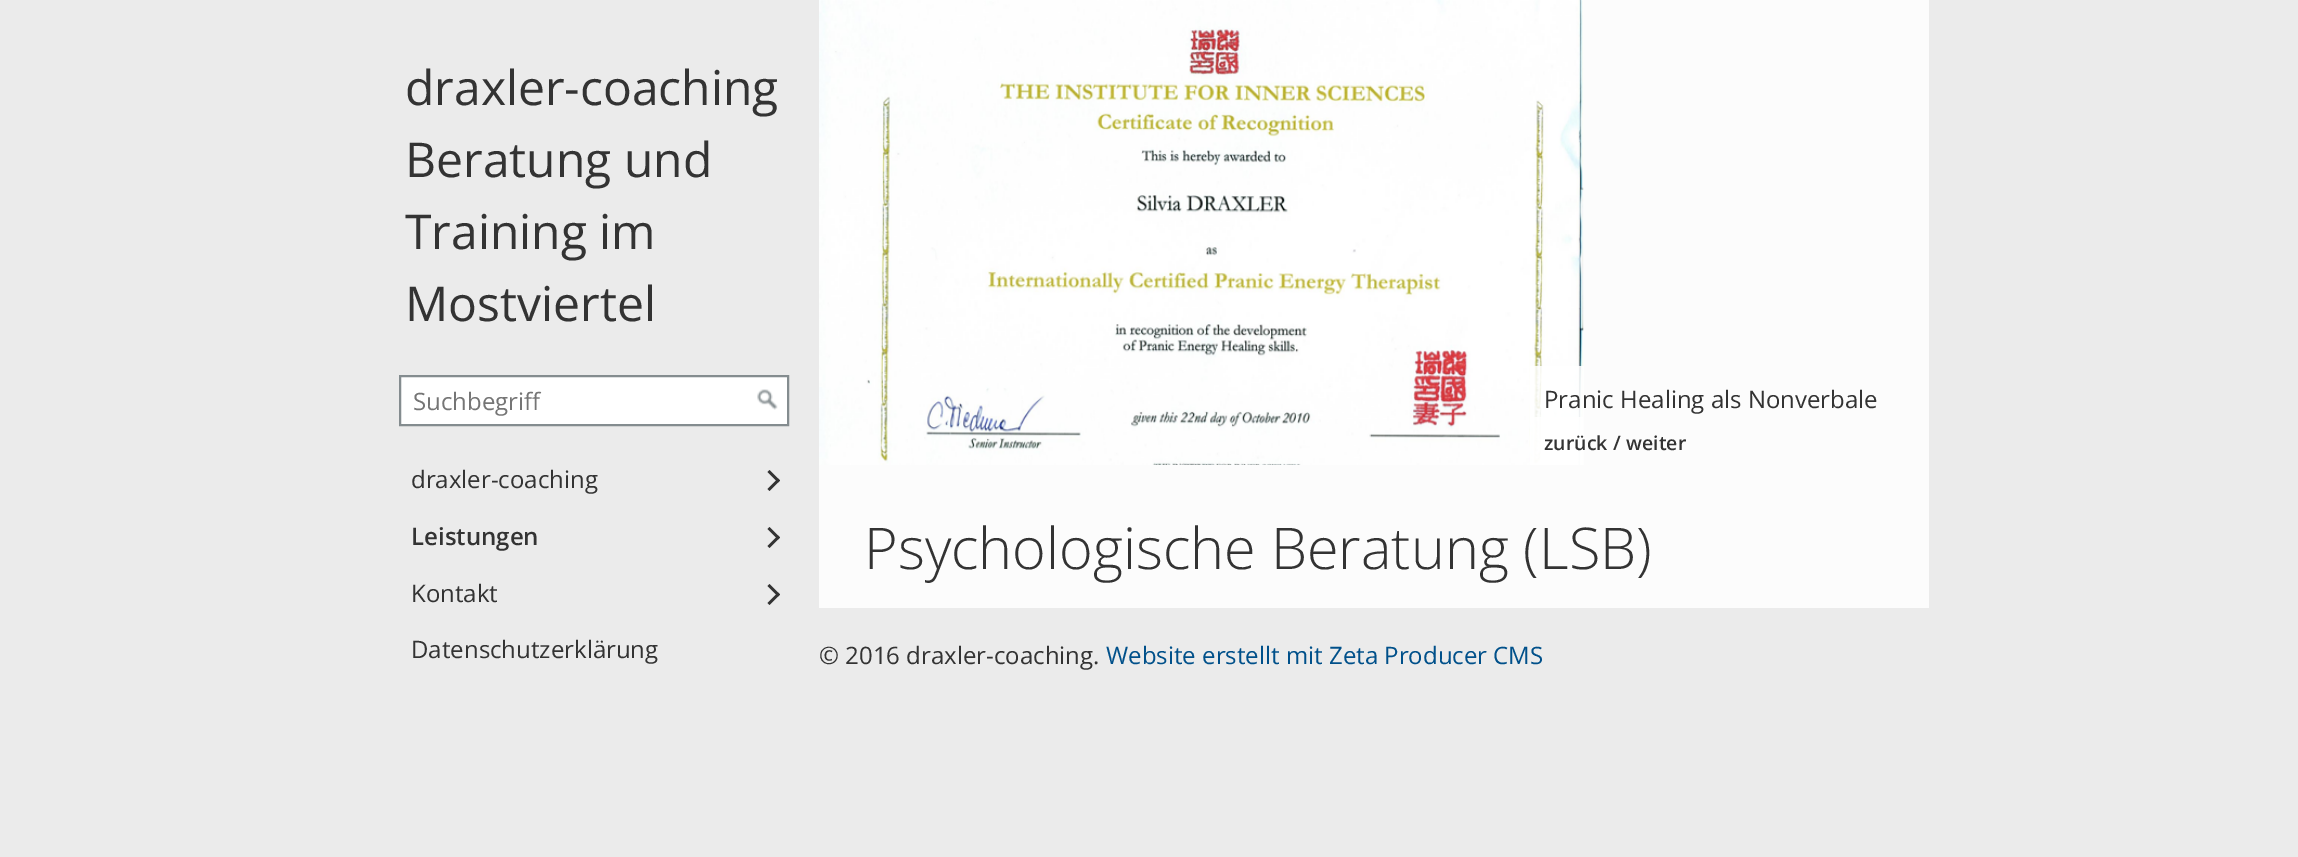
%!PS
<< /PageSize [2298 857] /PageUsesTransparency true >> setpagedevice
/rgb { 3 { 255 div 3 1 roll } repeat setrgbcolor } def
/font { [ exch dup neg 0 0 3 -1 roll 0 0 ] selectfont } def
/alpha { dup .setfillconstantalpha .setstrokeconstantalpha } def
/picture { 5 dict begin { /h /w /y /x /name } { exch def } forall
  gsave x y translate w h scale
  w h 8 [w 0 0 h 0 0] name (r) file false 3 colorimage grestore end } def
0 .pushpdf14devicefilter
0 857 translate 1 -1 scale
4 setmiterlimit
235 235 235 rgb
0 0 2298 857 rectfill
255 255 255 rgb
400 376 moveto 788 376 lineto 788 425 lineto 400 425 lineto closepath gsave fill grestore
132 140 143 rgb
2 setlinewidth
stroke
(img/1.rgb) 757 389 21 21 picture
51 51 51 rgb
769.5 470 moveto 780 480.5 lineto 778 482.5 lineto 767.5 472 lineto closepath fill
778 478.5 moveto 780 480.5 lineto 769.5 491 lineto 767.5 489 lineto closepath fill
769.5 527 moveto 780 537.5 lineto 778 539.5 lineto 767.5 529 lineto closepath fill
778 535.5 moveto 780 537.5 lineto 769.5 548 lineto 767.5 546 lineto closepath fill
769.5 584 moveto 780 594.5 lineto 778 596.5 lineto 767.5 586 lineto closepath fill
778 592.5 moveto 780 594.5 lineto 769.5 605 lineto 767.5 603 lineto closepath fill
252 252 252 rgb
1583 0 346 465 rectfill
(img/2.rgb) 819 0 765 465 picture
0.85 alpha
[
  [1530 366 54 99 255 255 255]
  [1533 417 50 48 255 255 255]
] { aload pop rgb rectfill } forall
1 alpha
[
  [819 465 1110 143 252 252 252]
] { aload pop rgb rectfill } forall
/OpenSans-Regular 48 font
51 51 51 rgb
[
  [(draxler-coaching) 405 105]
  [(Beratung und) 405 177]
  [(Training im) 405 249]
  [(Mostviertel) 405 321]
] { aload pop moveto show } forall
/OpenSans-Regular 24 font
117 117 117 rgb
413 410 moveto (Suchbegriff) show
51 51 51 rgb
411 488 moveto (draxler-coaching) show
/OpenSans-SemiBold 24 font
411 545 moveto (Leistungen) show
/OpenSans-Regular 24 font
[
  [(Kontakt) 411 602]
  [(Datenschutzerklärung) 411 658]
  [(Pranic Healing als Nonverbale) 1544 408]
] { aload pop moveto show } forall
/OpenSans-SemiBold 19.5 font
1544 450 moveto (zurück) show
/OpenSans-SemiBold 20 font
1613 450 moveto (/) show
/OpenSans-SemiBold 19.5 font
1626 450 moveto (weiter) show
/OpenSans-Light 57.6 font
864 569 moveto (Psychologische Beratung \(LSB\)) show
/OpenSans-Regular 24 font
819 664 moveto (© 2016 draxler-coaching.) show
0 80 138 rgb
1106 664 moveto (Website erstellt mit Zeta Producer CMS) show
.poppdf14devicefilter showpage
